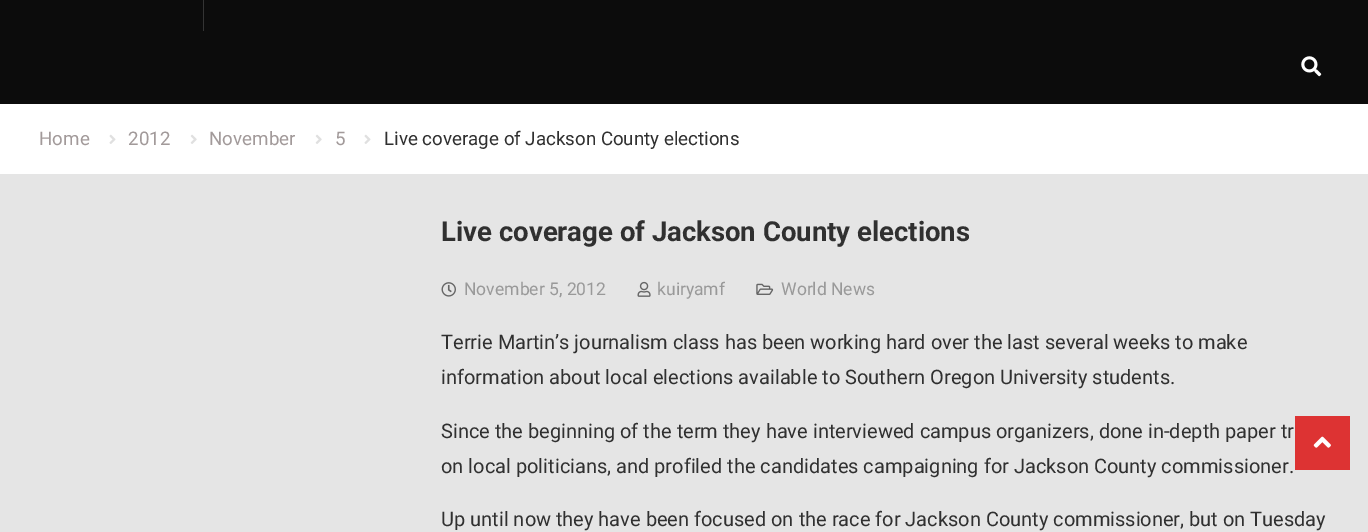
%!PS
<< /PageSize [1368 532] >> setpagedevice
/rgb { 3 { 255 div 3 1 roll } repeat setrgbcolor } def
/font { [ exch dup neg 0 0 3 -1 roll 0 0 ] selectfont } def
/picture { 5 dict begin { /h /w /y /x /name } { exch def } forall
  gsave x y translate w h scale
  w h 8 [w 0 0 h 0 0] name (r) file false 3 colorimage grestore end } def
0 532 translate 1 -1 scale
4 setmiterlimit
229 229 229 rgb
0 0 1368 532 rectfill
12 12 12 rgb
0 0 1368 104 rectfill
52 52 52 rgb
203 0 1 31 rectfill
(img/1.rgb) 1301 56 21 21 picture
255 255 255 rgb
0 104 1368 70 rectfill
(img/2.rgb) 109 134 7 10 picture
(img/3.rgb) 190 134 7 10 picture
(img/3.rgb) 315 134 7 10 picture
(img/2.rgb) 364 134 7 10 picture
(img/4.rgb) 441 282 15 15 picture
(img/5.rgb) 637 281 14 16 picture
(img/6.rgb) 756 283 18 12 picture
221 51 51 rgb
1295 416 55 54 rectfill
(img/7.rgb) 1313 436 18 12 picture
/Roboto-Regular 18.75 font
162 154 154 rgb
[
  [(Home) 39 145]
  [(2012) 128 145]
  [(November) 209 145]
  [(5) 335 145]
] { aload pop moveto show } forall
48 48 48 rgb
384 145 moveto (Live coverage of Jackson County elections) show
/Roboto-Bold 27.5 font
441 241 moveto (Live coverage of Jackson County elections) show
/Roboto-Regular 17.5 font
153 153 153 rgb
[
  [(November 5, 2012) 464 295]
  [(kuiryamf) 657 295]
  [(World News) 781 295]
] { aload pop moveto show } forall
/Roboto-Regular 20 font
48 48 48 rgb
[
  [(Terrie Martin’s journalism class has been working hard over the last several weeks to make) 441 349]
  [(information about local elections available to Southern Oregon University students.) 441 384]
  [(Since the beginning of the term they have interviewed campus organizers, done in-depth paper tr) 441 438]
  [(on local politicians, and profiled the candidates campaigning for Jackson County commissioner.) 441 473]
  [(Up until now they have been focused on the race for Jackson County commissioner, but on Tuesday) 441 526]
] { aload pop moveto show } forall
showpage
